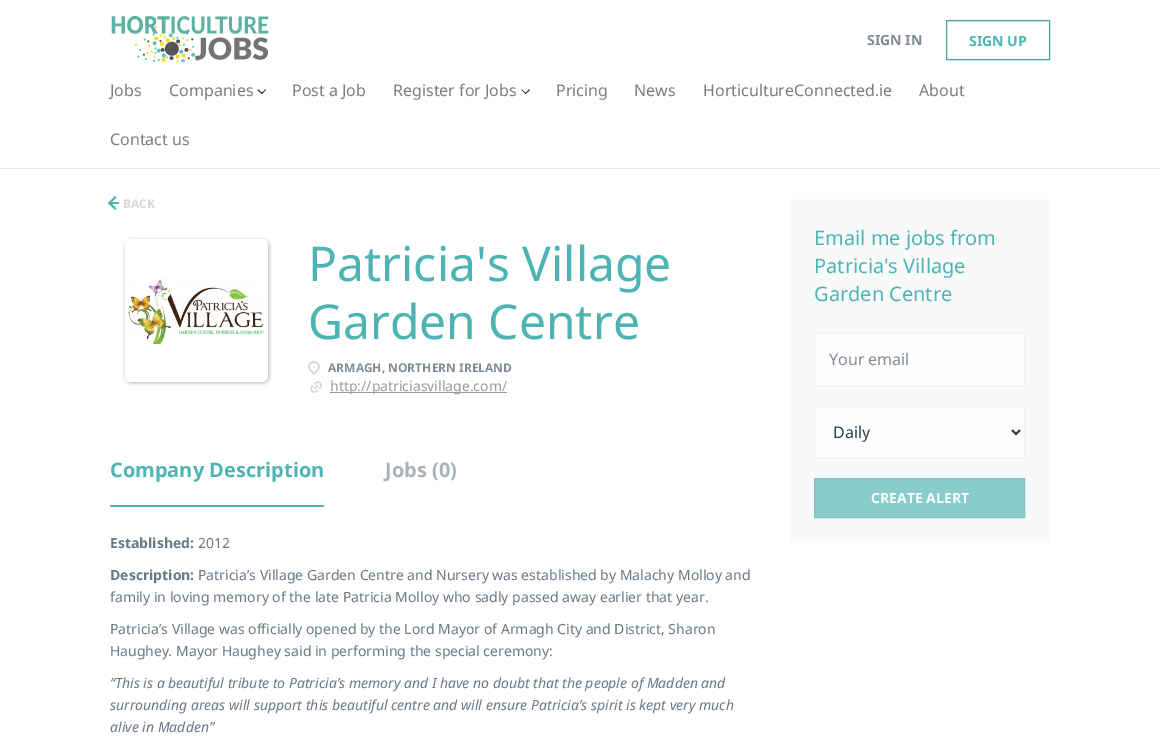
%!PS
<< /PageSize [1160 740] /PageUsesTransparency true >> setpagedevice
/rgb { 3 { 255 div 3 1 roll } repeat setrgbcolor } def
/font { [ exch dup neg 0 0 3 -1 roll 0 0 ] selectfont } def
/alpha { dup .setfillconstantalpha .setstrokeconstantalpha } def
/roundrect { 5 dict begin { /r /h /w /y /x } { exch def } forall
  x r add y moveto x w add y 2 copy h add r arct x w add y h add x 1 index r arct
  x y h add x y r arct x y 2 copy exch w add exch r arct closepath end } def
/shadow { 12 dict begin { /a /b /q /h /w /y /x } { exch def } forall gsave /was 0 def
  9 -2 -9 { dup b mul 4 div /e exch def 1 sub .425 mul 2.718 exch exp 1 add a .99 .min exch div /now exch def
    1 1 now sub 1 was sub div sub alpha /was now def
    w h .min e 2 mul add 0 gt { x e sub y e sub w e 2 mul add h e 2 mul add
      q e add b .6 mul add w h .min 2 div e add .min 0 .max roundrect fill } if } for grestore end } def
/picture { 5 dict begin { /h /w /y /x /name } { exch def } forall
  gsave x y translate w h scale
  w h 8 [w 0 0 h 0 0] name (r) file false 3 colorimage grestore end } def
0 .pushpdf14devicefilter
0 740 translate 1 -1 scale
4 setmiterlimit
255 255 255 rgb
0 0 1160 740 rectfill
228 230 232 rgb
0 168 1160 1 rectfill
(img/1.rgb) 111 16 158 46 picture
69 162 162 rgb
946.5 20.5 103 39 rectstroke
38 38 38 rgb
266 90 moveto 262 94 lineto 261 93.5 lineto 265.5 89.5 lineto closepath fill
262.5 93.5 moveto 262 94 lineto 257.5 90 lineto 258.5 89.5 lineto closepath fill
530 90 moveto 525.5 94 lineto 525 93.5 lineto 529 89.5 lineto closepath fill
526 93.5 moveto 525.5 94 lineto 521.5 90 lineto 522 89.5 lineto closepath fill
77 179 179 rgb
109.5 201.5 moveto 116.5 208.5 lineto 115 210 lineto 108 203 lineto closepath fill
115 196 moveto 116.5 197.5 lineto 109.5 204.5 lineto 108 203 lineto closepath fill
110 202 9 2 rectfill
0 0 0 rgb
126 240 143 143 6 2 0.3 shadow
255 255 255 rgb
125 239 143 143 6 roundrect fill
(img/2.rgb) 128 277 136 67 picture
(img/3.rgb) 308 361 12 14 picture
(img/4.rgb) 310 381 12 12 picture
[
  [330 392 177 1 153 153 153]
  [110 505 214 2 77 179 179]
  [789 199 261 344 248 249 249]
] { aload pop rgb rectfill } forall
254 254 254 rgb
814.5 333.5 moveto 1024.5 333.5 lineto 1024.5 385.5 lineto 814.5 385.5 lineto closepath gsave fill grestore
242 242 242 rgb
stroke
254 254 254 rgb
814.5 406.5 moveto 1024.5 406.5 lineto 1024.5 457.5 lineto 814.5 457.5 lineto closepath gsave fill grestore
242 242 242 rgb
stroke
45 62 80 rgb
2 setlinewidth
1012 430 moveto 1016 434 lineto 1020 430 lineto stroke
137 204 204 rgb
814.5 478.5 moveto 1024.5 478.5 lineto 1024.5 517.5 lineto 814.5 517.5 lineto closepath gsave fill grestore
132 192 192 rgb
1 setlinewidth
stroke
/NotoSans-Bold 14 font
129 139 150 rgb
867 45 moveto (SIGN IN) show
77 179 179 rgb
969 46 moveto (SIGN UP) show
/NotoSans-Regular 16 font
125 125 125 rgb
[
  [(Jobs) 110 96]
  [(Companies) 169 96]
  [(Post a Job) 292 96]
  [(Register for Jobs) 393 96]
  [(Pricing) 556 96]
  [(News) 634 96]
  [(HorticultureConnected.ie) 703 96]
  [(About) 919 96]
  [(Contact us) 110 145]
] { aload pop moveto show } forall
/NotoSans-Bold 12 font
213 216 220 rgb
123 208 moveto (BACK) show
/NotoSans-Regular 48 font
77 179 179 rgb
308 281 moveto (Patricia's Village) show
308 339 moveto (Garden Centre) show
/NotoSans-Bold 12 font
129 139 150 rgb
328 372 moveto (ARMAGH, NORTHERN IRELAND) show
/NotoSans-Regular 14 font
153 153 153 rgb
330 391 moveto (http://patriciasvillage.com/) show
/NotoSans-Bold 20 font
77 179 179 rgb
110 477 moveto (Company Description) show
171 177 185 rgb
385 477 moveto (Jobs \(0\)) show
/NotoSans-Bold 14 font
107 119 133 rgb
110 548 moveto (Established:) show
/NotoSans-Regular 14 font
198 548 moveto (2012) show
/NotoSans-Bold 14 font
110 580 moveto (Description:) show
/NotoSans-Regular 14 font
[
  [(Patricia’s Village Garden Centre and Nursery was established by Malachy Molloy and) 198 580]
  [(family in loving memory of the late Patricia Molloy who sadly passed away earlier that year.) 110 602]
  [(Patricia’s Village was officially opened by the Lord Mayor of Armagh City and District, Sharon) 110 634]
  [(Haughey) 110 656]
] { aload pop moveto show } forall
/NotoSans-Italic 14 font
169 656 moveto (.) show
/NotoSans-Regular 14 font
176 656 moveto (Mayor Haughey said in performing the special ceremony:) show
/NotoSans-Italic 14 font
[
  [(“This is a beautiful tribute to Patricia’s memory and I have no doubt that the people of Madden and) 110 688]
  [(surrounding areas will support this beautiful centre and will ensure Patricia’s spirit is kept very much) 110 710]
  [(alive in Madden”) 110 732]
] { aload pop moveto show } forall
/NotoSans-Regular 20 font
77 179 179 rgb
[
  [(Email me jobs from) 814 245]
  [(Patricia's Village) 814 273]
  [(Garden Centre) 814 301]
] { aload pop moveto show } forall
/NotoSans-Regular 16 font
129 139 150 rgb
829 365 moveto (Your email) show
45 62 80 rgb
833 438 moveto (Daily) show
/NotoSans-Bold 14 font
253 253 253 rgb
871 503 moveto (CREATE ALERT) show
.poppdf14devicefilter showpage
